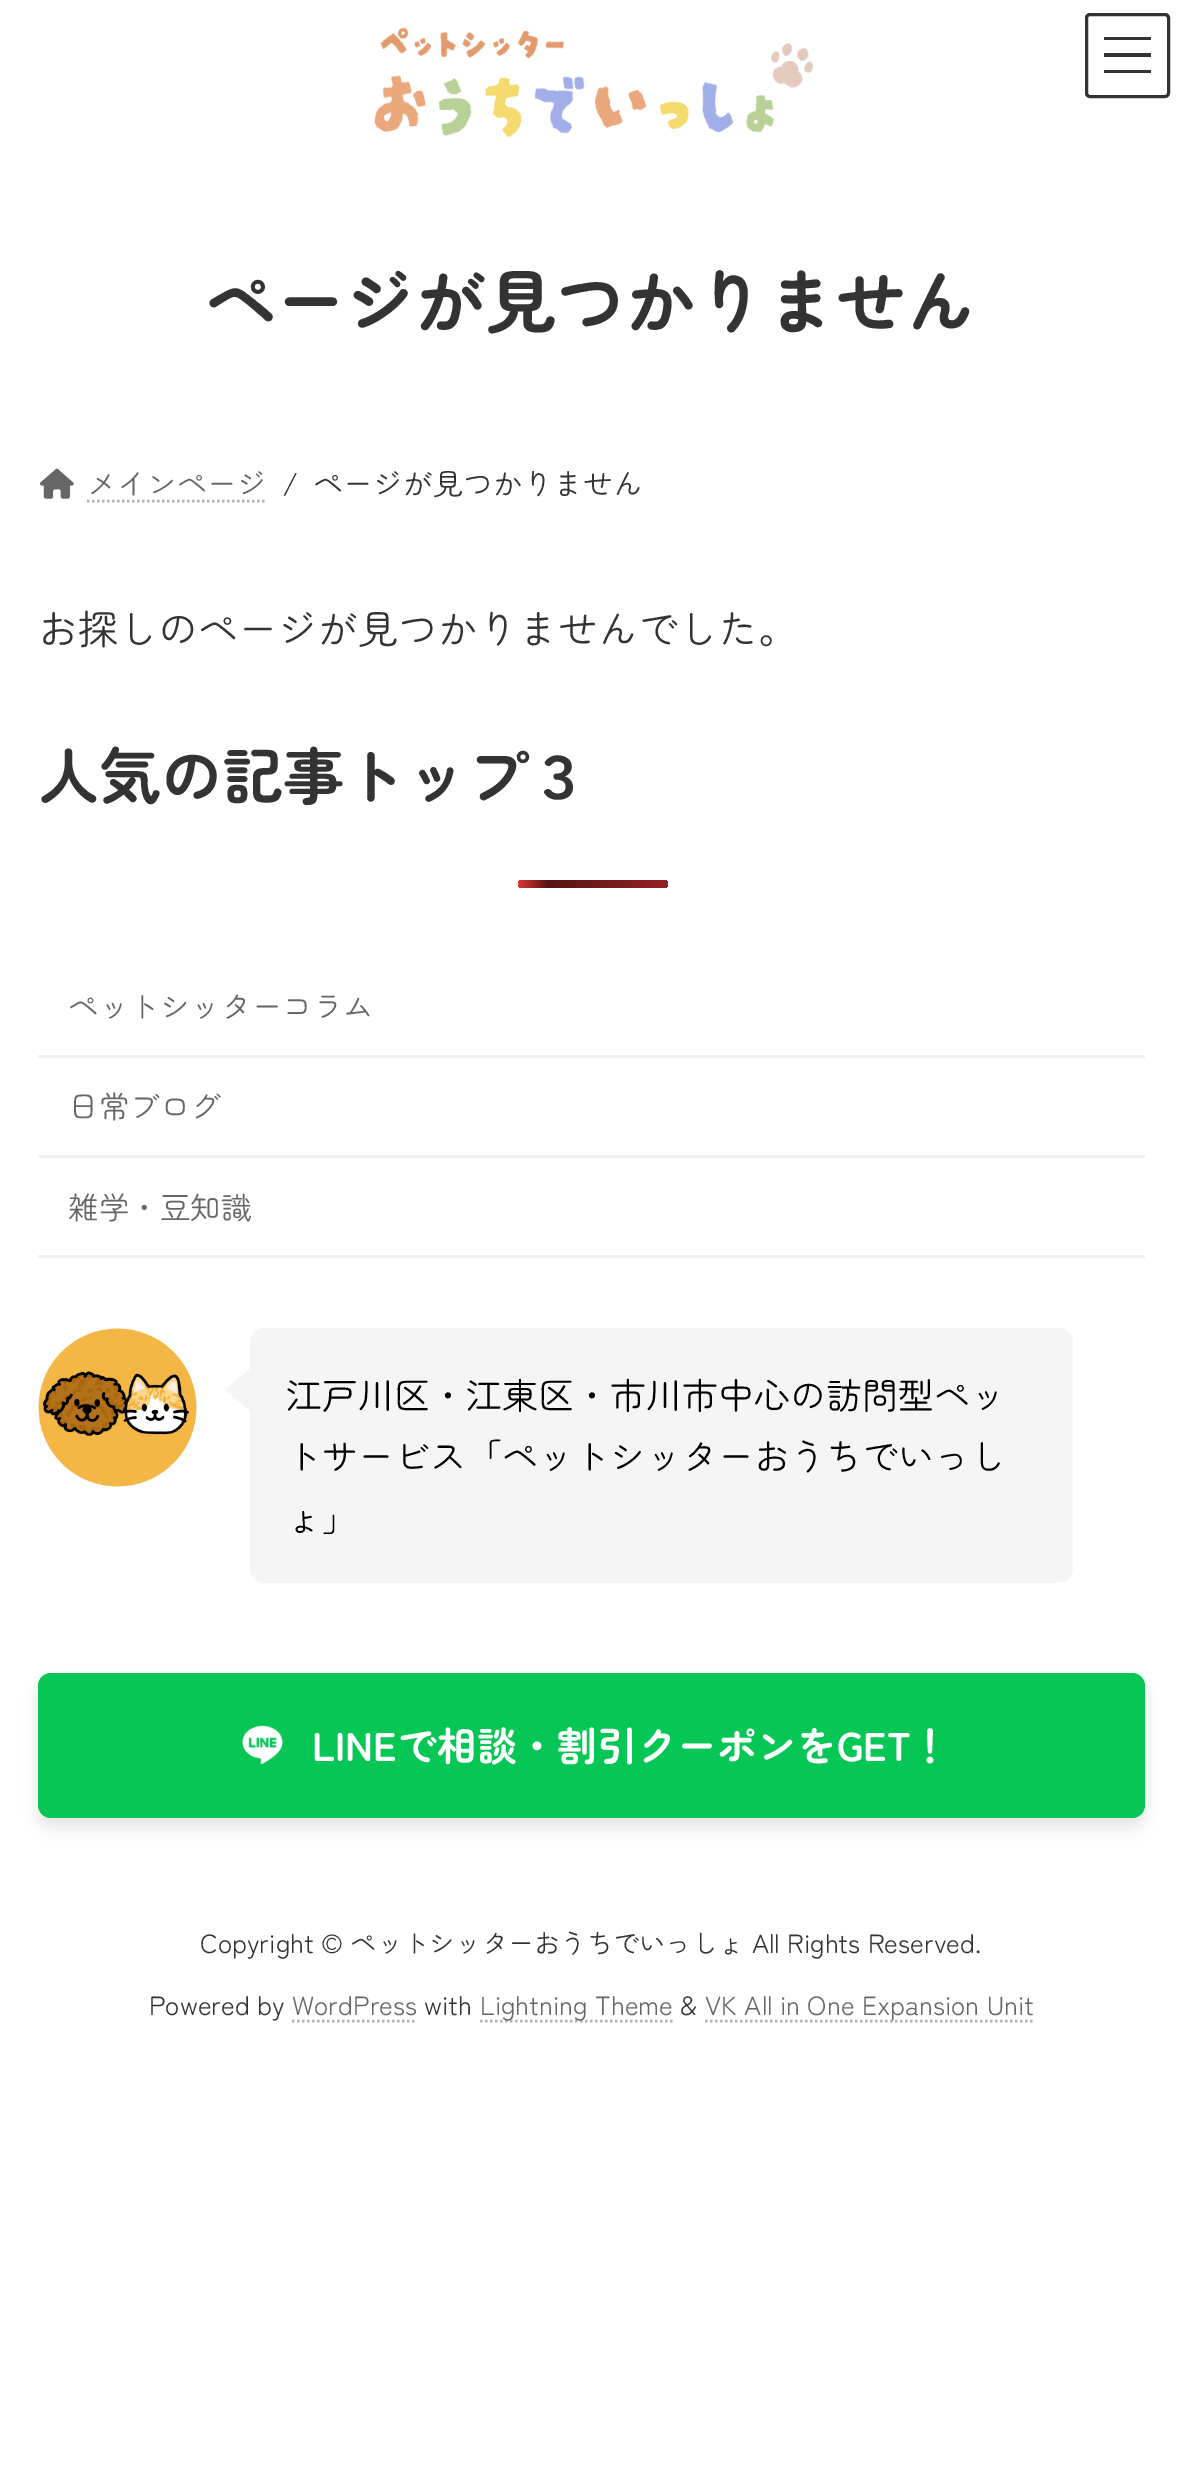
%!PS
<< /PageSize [1182 2474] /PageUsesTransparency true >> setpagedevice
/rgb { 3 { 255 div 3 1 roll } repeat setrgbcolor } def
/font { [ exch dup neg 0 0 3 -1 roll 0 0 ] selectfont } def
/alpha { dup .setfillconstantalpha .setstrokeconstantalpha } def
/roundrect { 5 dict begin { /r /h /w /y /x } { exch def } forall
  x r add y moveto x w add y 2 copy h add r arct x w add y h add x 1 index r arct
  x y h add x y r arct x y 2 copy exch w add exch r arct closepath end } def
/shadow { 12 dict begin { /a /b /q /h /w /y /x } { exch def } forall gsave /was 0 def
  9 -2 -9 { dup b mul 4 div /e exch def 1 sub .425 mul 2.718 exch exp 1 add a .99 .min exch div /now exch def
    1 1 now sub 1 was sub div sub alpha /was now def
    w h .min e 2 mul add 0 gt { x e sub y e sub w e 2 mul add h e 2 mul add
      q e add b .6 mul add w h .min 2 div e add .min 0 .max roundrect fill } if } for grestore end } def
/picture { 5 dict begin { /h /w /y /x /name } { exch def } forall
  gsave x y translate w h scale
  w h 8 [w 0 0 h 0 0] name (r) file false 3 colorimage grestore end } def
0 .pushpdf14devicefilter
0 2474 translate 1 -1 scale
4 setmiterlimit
255 255 255 rgb
0 0 1182 2474 rectfill
(img/1.rgb) 374 27 440 110 picture
[
  [1104 37 47 3 51 51 51]
  [1104 53 47 4 51 51 51]
  [1104 70 47 3 51 51 51]
] { aload pop rgb rectfill } forall
3 setlinewidth
1086.5 14.5 82 82 3.5 roundrect stroke
(img/2.rgb) 40 468 34 31 picture
179 179 179 rgb
2.5 setlinewidth
[2.5 2.5] 0 setdash
87 501 moveto 267 501 lineto stroke
gsave 518 880 150 8 4 roundrect clip newpath
<< /ShadingType 2 /ColorSpace /DeviceRGB /Coords [518 884 818 884] /Extend [true true] /Function << /FunctionType 3 /Domain [0 1] /Functions [<< /FunctionType 2 /Domain [0 1] /C0 [0.867 0.216 0.216] /C1 [0.341 0.075 0.075] /N 1 >> << /FunctionType 2 /Domain [0 1] /C0 [0.341 0.075 0.075] /C1 [0.867 0.216 0.216] /N 1 >>] /Bounds [0.1] /Encode [0 1 0 1] >> >> shfill grestore
[
  [38 1055 1107 3 240 240 240]
  [38 1155 1107 3 240 240 240]
  [38 1255 1107 3 240 240 240]
] { aload pop rgb rectfill } forall
(img/3.rgb) 38 1328 159 159 picture
245 245 245 rgb
250 1328 823 255 15 roundrect fill
255 1365 moveto 255 1415 lineto 225 1390 lineto closepath fill
0 0 0 rgb
38 1683 1107 145 13 7.5 0.1 shadow
6 199 85 rgb
38 1673 1107 145 13 roundrect fill
(img/4.rgb) 242 1725 41 40 picture
179 179 179 rgb
292 2021 moveto 417 2021 lineto stroke
480 2021 moveto 673 2021 lineto stroke
705 2021 moveto 1034 2021 lineto stroke
/ZenMaruGothic-Bold 70 font
51 51 51 rgb
206 328 moveto (ページが見つかりません) show
/ZenMaruGothic-Regular 30 font
102 102 102 rgb
87 495 moveto (メインページ) show
51 51 51 rgb
282 495 moveto (/) show
313 495 moveto (ページが見つかりません) show
/ZenMaruGothic-Regular 40 font
38 644 moveto (お探しのページが見つかりませんでした。) show
/ZenMaruGothic-Bold 61.25 font
38 799 moveto (人気の記事トップ３) show
/ZenMaruGothic-Regular 30.6 font
102 102 102 rgb
[
  [(ペットシッターコラム) 68 1018]
  [(日常ブログ) 68 1118]
  [(雑学・豆知識) 68 1219]
] { aload pop moveto show } forall
/ZenMaruGothic-Regular 36 font
0 0 0 rgb
[
  [(江戸川区・江東区・市川市中心の訪問型ペッ) 286 1409]
  [(トサービス「ペットシッターおうちでいっし) 286 1470]
  [(ょ」) 286 1531]
] { aload pop moveto show } forall
/ZenMaruGothic-Bold 40 font
255 255 255 rgb
312 1761 moveto (LINEで相談・割引クーポンをGET！) show
/ZenMaruGothic-Regular 26.25 font
51 51 51 rgb
200 1953 moveto (Copyright © ペットシッターおうちでいっしょ All Rights Reserved.) show
149 2015 moveto (Powered by) show
102 102 102 rgb
292 2015 moveto (WordPress) show
51 51 51 rgb
424 2015 moveto (with) show
102 102 102 rgb
480 2015 moveto (Lightning Theme) show
51 51 51 rgb
680 2015 moveto (&) show
102 102 102 rgb
705 2015 moveto (VK All in One Expansion Unit) show
.poppdf14devicefilter showpage
